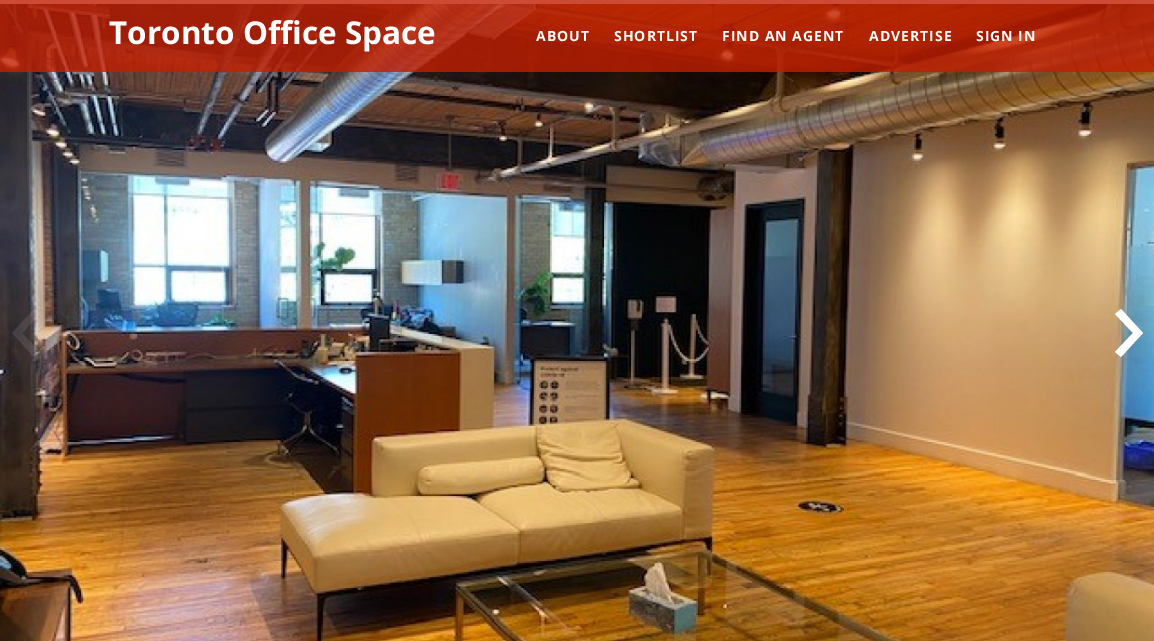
%!PS
<< /PageSize [1154 641] /PageUsesTransparency true >> setpagedevice
/rgb { 3 { 255 div 3 1 roll } repeat setrgbcolor } def
/font { [ exch dup neg 0 0 3 -1 roll 0 0 ] selectfont } def
/alpha { dup .setfillconstantalpha .setstrokeconstantalpha } def
/picture { 5 dict begin { /h /w /y /x /name } { exch def } forall
  gsave x y translate w h scale
  w h 8 [w 0 0 h 0 0] name (r) file false 3 colorimage grestore end } def
0 .pushpdf14devicefilter
0 641 translate 1 -1 scale
4 setmiterlimit
255 255 255 rgb
0 0 1154 641 rectfill
(img/1.rgb) 0 4 1154 637 picture
(img/2.rgb) 12 309 28 48 picture
(img/3.rgb) 1114 309 29 48 picture
0.8 alpha
193 30 1 rgb
0 0 1154 72 rectfill
/OpenSans-Bold 31.5 font
1 alpha
255 255 255 rgb
109 44 moveto (Toronto Office Space) show
/OpenSans-Bold 14 font
536 41 moveto 1 0 (ABOUT) ashow
614 41 moveto 1 0 (SHORTLIST) ashow
722 41 moveto 1 0 (FIND AN AGENT) ashow
869 41 moveto 1 0 (ADVERTISE) ashow
976 41 moveto 1 0 (SIGN IN) ashow
.poppdf14devicefilter showpage
